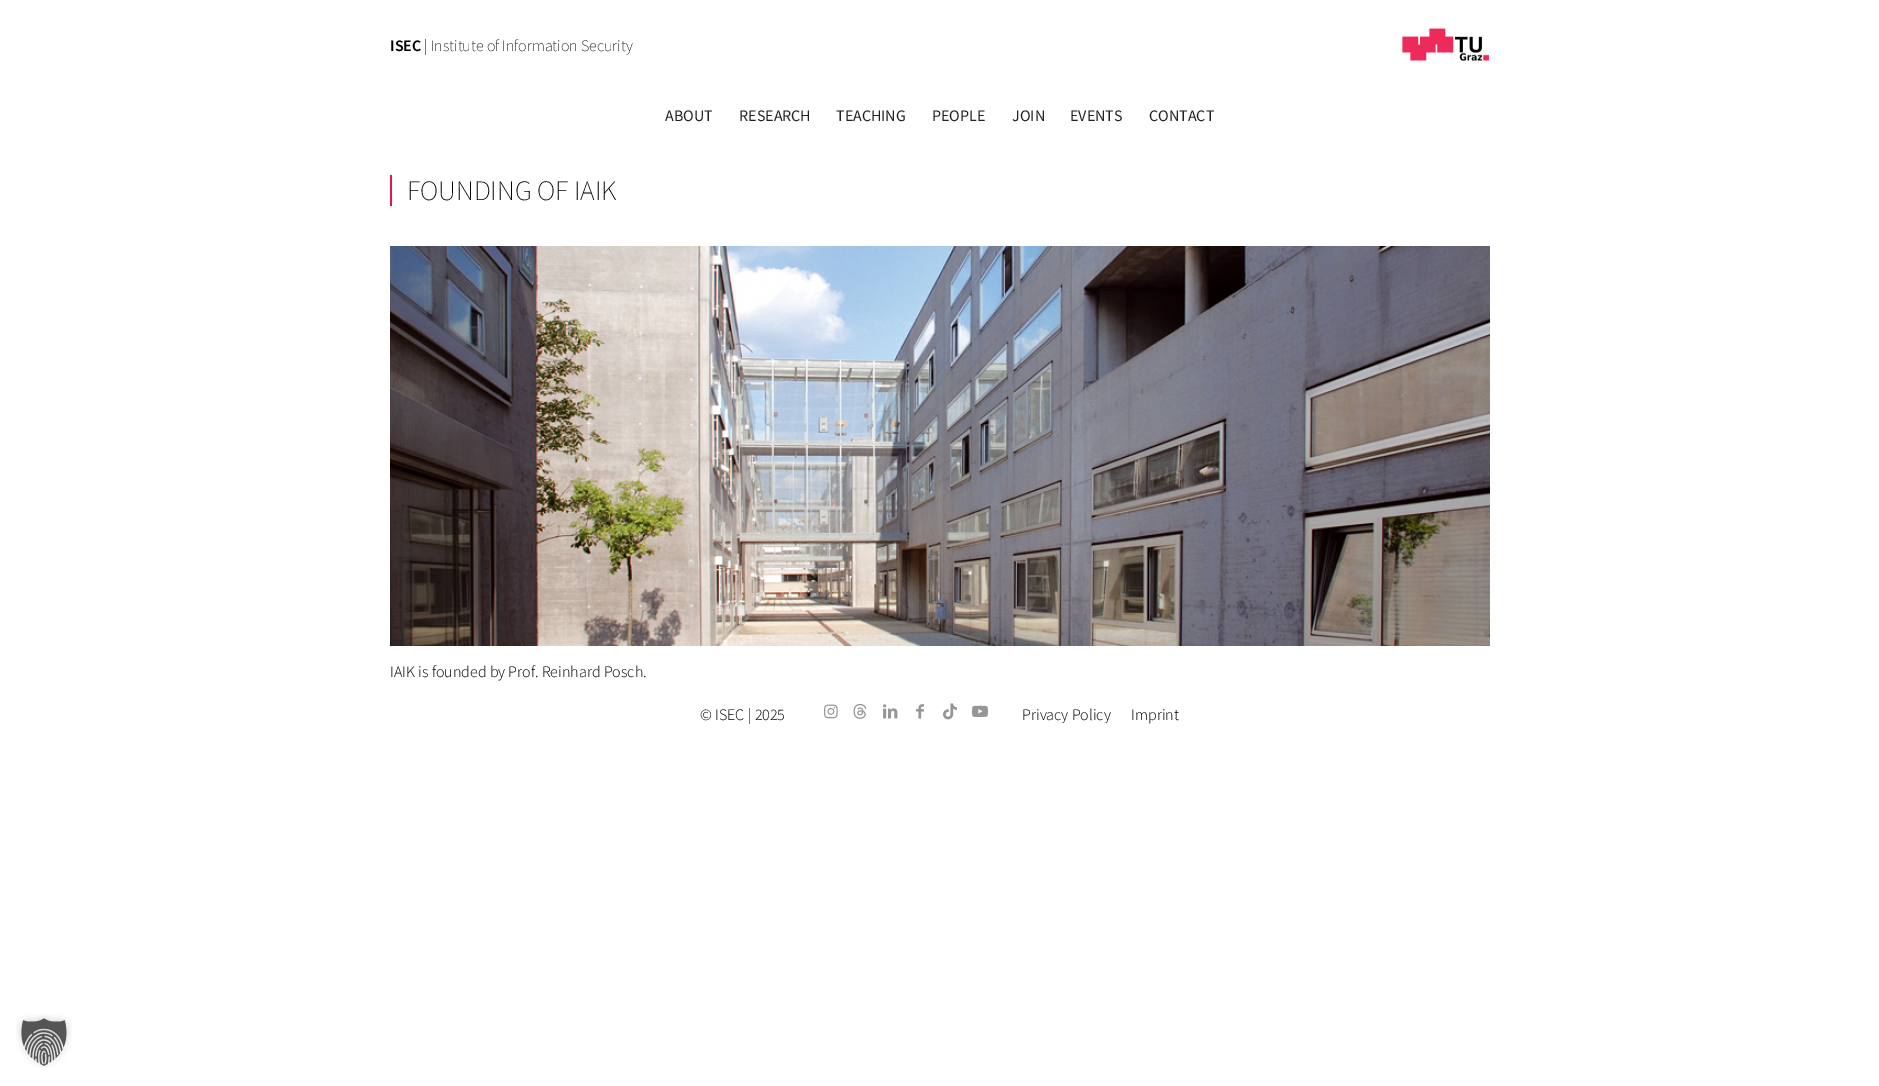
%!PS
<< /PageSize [1879 1086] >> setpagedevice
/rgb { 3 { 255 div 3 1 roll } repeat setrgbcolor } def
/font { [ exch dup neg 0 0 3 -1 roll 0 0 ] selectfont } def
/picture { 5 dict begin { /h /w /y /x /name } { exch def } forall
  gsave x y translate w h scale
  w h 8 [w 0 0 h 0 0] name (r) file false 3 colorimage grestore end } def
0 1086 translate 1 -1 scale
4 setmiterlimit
255 255 255 rgb
0 0 1879 1086 rectfill
(img/1.rgb) 1402 28 87 33 picture
228 21 76 rgb
390 175 2 31 rectfill
(img/2.rgb) 390 246 1100 400 picture
(img/3.rgb) 824 704 14 15 picture
(img/4.rgb) 853 703 14 16 picture
(img/5.rgb) 883 704 15 15 picture
(img/6.rgb) 916 704 8 15 picture
(img/7.rgb) 943 703 14 17 picture
(img/8.rgb) 972 705 16 12 picture
(img/9.rgb) 16 1014 56 54 picture
/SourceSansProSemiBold-SemiBold 16 font
0 0 0 rgb
390 51 moveto (ISEC) show
/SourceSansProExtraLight-ExtraLight 16 font
424 51 moveto (| Institute of Information Security) show
/SourceSansPro-Regular 16 font
34 34 34 rgb
[
  [(ABOUT) 665 121]
  [(RESEARCH) 739 121]
  [(TEACHING) 836 121]
  [(PEOPLE) 932 121]
  [(JOIN) 1012 121]
  [(EVENTS) 1070 121]
  [(CONTACT) 1149 121]
] { aload pop moveto show } forall
/SourceSansProExtraLight-ExtraLight 28 font
0 0 0 rgb
407 200 moveto (FOUNDING OF IAIK) show
/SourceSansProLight-Light 16 font
390 677 moveto (IAIK is founded by Prof. Reinhard Posch.) show
700 720 moveto (© ISEC | 2025) show
gsave
1005 699 174 24 rectclip
1022 720 moveto (Privacy Policy) show
grestore
1131 720 moveto (Imprint) show
showpage
